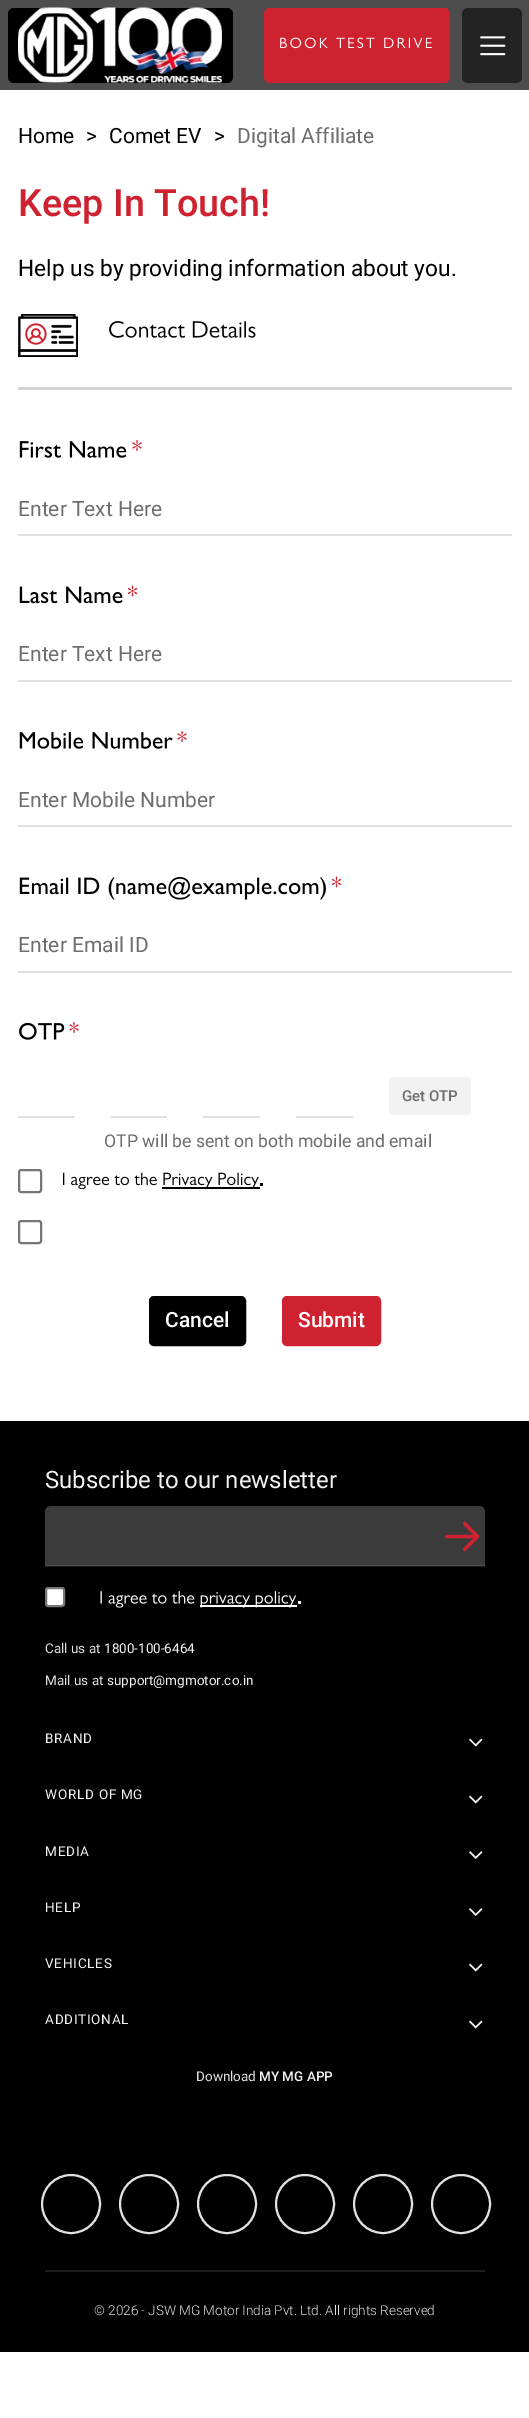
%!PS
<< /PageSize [529 2418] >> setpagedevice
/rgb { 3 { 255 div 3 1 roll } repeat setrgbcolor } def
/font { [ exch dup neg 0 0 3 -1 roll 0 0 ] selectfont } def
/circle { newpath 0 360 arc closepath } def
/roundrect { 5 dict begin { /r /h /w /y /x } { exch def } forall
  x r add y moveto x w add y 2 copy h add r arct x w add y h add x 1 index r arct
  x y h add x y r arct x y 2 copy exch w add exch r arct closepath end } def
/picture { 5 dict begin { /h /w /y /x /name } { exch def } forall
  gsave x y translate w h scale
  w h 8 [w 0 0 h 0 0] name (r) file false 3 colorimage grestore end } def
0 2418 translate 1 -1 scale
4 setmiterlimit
255 255 255 rgb
0 0 529 2418 rectfill
77 77 77 rgb
0 0 529 90 rectfill
0 0 0 rgb
8 8 225 75 6 roundrect fill
(img/1.rgb) 18 7 204 76 picture
207 34 48 rgb
264 8 186 75 6 roundrect fill
(img/2.rgb) 280 37 152 12 picture
35 35 35 rgb
462 8 60 75 6 roundrect fill
(img/3.rgb) 480 36 26 20 picture
211 211 211 rgb
18 387 494 3 rectfill
(img/4.rgb) 18 314 60 43 picture
(img/5.rgb) 109 321 147 17 picture
(img/6.rgb) 19 441 108 17 picture
(img/7.rgb) 132 440 10 11 picture
225 225 225 rgb
18 534 494 2 rectfill
(img/8.rgb) 19 586 104 18 picture
(img/9.rgb) 127 585 11 12 picture
18 680 494 2 rectfill
(img/10.rgb) 19 732 154 17 picture
(img/7.rgb) 177 731 10 11 picture
18 825 494 2 rectfill
(img/11.rgb) 19 877 307 23 picture
(img/9.rgb) 331 876 11 12 picture
18 971 494 2 rectfill
(img/12.rgb) 19 1022 46 18 picture
(img/7.rgb) 69 1022 10 11 picture
[
  [18 1116 57 2 225 225 225]
  [111 1116 56 2 225 225 225]
  [203 1116 57 2 225 225 225]
  [296 1116 57 2 225 225 225]
] { aload pop rgb rectfill } forall
242 242 242 rgb
389 1077 82 38 5 roundrect fill
118 118 118 rgb
2 setlinewidth
19 1170 22 22 2 roundrect stroke
(img/13.rgb) 62 1172 95 18 picture
0 0 0 rgb
162 1187 98 2 rectfill
(img/14.rgb) 163 1172 96 18 picture
3 3 3 rgb
260 1183 3 3 rectfill
118 118 118 rgb
19 1221 22 22 2 roundrect stroke
0 0 0 rgb
150 1297 95 48 4 roundrect gsave fill grestore
stroke
207 34 48 rgb
283 1297 97 48 4 roundrect gsave fill grestore
stroke
0 0 0 rgb
0 1421 529 931 rectfill
26 26 26 rgb
45 1566 440 1 rectfill
59 59 59 rgb
51 1506 moveto 479 1506 lineto 482.5 1506 485 1508.5 485 1512 curveto 485 1566 lineto 45 1566 lineto 45 1512 lineto 45 1508.5 47.5 1506 51 1506 curveto closepath fill
79 79 79 rgb
45 1565 440 1 rectfill
207 34 48 rgb
3.2 setlinewidth
1 setlinecap
1 setlinejoin
464.5 1549.5 moveto 477.5 1536.5 lineto 477.5 1536.5 moveto 464.5 1523.5 lineto 477.5 1536.5 moveto 446.5 1536.5 lineto stroke
255 255 255 rgb
46 1588 18 18 2 roundrect gsave fill grestore
118 118 118 rgb
2 setlinewidth
0 setlinecap
0 setlinejoin
stroke
(img/15.rgb) 100 1591 95 17 picture
255 255 255 rgb
200 1605 97 2 rectfill
(img/16.rgb) 200 1591 97 17 picture
250 250 250 rgb
298 1601 3 3 rectfill
(img/17.rgb) 469 1738 14 9 picture
(img/17.rgb) 469 1795 14 9 picture
(img/18.rgb) 469 1851 14 8 picture
(img/18.rgb) 469 1908 14 8 picture
(img/17.rgb) 469 1963 14 9 picture
(img/17.rgb) 469 2020 14 9 picture
225 225 225 rgb
71 2204 29 circle stroke
149 2204 29 circle stroke
227 2204 29 circle stroke
305 2204 29 circle stroke
383 2204 29 circle stroke
461 2204 29 circle stroke
28 28 28 rgb
45 2270 440 2 rectfill
/Roboto-Regular 21 font
0 0 0 rgb
[
  [(Home) 18 143]
  [(>) 86 143]
  [(Comet EV) 109 143]
  [(>) 214 143]
] { aload pop moveto show } forall
110 110 110 rgb
237 143 moveto (Digital Affiliate) show
/Roboto-Medium 37.75 font
207 34 48 rgb
18 216 moveto (Keep In Touch!) show
/Roboto-Regular 22.7 font
0 0 0 rgb
18 276 moveto (Help us by providing information about you.) show
/Roboto-Regular 21 font
110 110 110 rgb
[
  [(Enter Text Here) 18 516]
  [(Enter Text Here) 18 661]
  [(Enter Mobile Number) 18 807]
  [(Enter Email ID) 18 952]
] { aload pop moveto show } forall
/Roboto-Medium 15 font
402 1101 moveto (Get OTP) show
/Roboto-Regular 17.6 font
104 1147 moveto (OTP will be sent on both mobile and email) show
/Roboto-Medium 21 font
255 255 255 rgb
165 1327 moveto (Cancel) show
298 1327 moveto (Submit) show
/Roboto-Regular 24 font
242 242 242 rgb
45 1488 moveto (Subscribe to our newsletter) show
/Roboto-Regular 13.5 font
225 225 225 rgb
45 1653 moveto (Call us at) show
242 242 242 rgb
104 1653 moveto (1800-100-6464) show
225 225 225 rgb
45 1685 moveto (Mail us at) show
242 242 242 rgb
107 1685 moveto (support@mgmotor.co.in) show
45 1743 moveto 0.75 0 (BRAND) ashow
45 1799 moveto 0.75 0 (WORLD OF MG) ashow
45 1856 moveto 0.75 0 (MEDIA) ashow
45 1912 moveto 0.75 0 (HELP) ashow
45 1968 moveto 0.75 0 (VEHICLES) ashow
45 2024 moveto 0.75 0 (ADDITIONAL) ashow
225 225 225 rgb
196 2081 moveto (Download) show
/Roboto-Medium 13.5 font
242 242 242 rgb
259 2081 moveto (MY MG APP) show
/Roboto-Light 13.5 font
225 225 225 rgb
94 2315 moveto (© 2026 - JSW MG Motor India Pvt. Ltd. All rights Reserved) show
showpage
